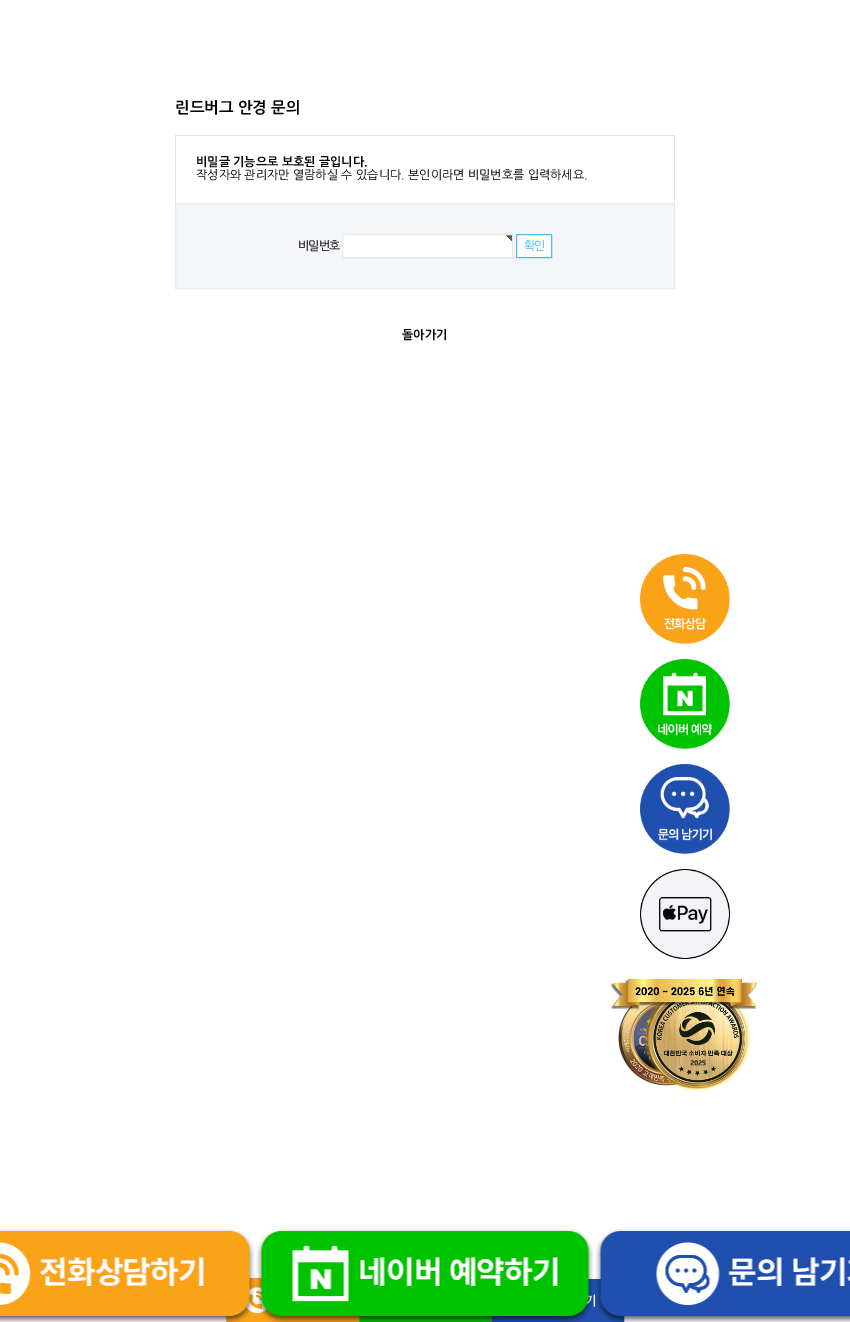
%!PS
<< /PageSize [850 1322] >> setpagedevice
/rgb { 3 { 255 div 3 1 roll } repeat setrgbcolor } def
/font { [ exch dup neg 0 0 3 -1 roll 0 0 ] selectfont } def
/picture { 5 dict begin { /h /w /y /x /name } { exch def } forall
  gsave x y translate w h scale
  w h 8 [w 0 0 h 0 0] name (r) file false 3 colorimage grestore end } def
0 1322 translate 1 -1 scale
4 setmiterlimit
255 255 255 rgb
0 0 850 1322 rectfill
[
  [175 135 500 1 221 228 233]
  [674 135 1 68 221 228 233]
  [175 135 1 68 221 228 233]
] { aload pop rgb rectfill } forall
245 246 250 rgb
175.5 203.5 moveto 674.5 203.5 lineto 674.5 288.5 lineto 175.5 288.5 lineto closepath gsave fill grestore
233 233 233 rgb
stroke
255 255 255 rgb
343 235 169 22 rectfill
(img/1.rgb) 506 235 6 6 picture
228 234 236 rgb
342.5 234.5 170 23 rectstroke
255 255 255 rgb
516.5 234.5 moveto 551.5 234.5 lineto 551.5 257.5 lineto 516.5 257.5 lineto closepath gsave fill grestore
68 190 236 rgb
stroke
(img/2.rgb) 640 554 90 90 picture
(img/3.rgb) 640 659 90 90 picture
(img/4.rgb) 640 764 90 90 picture
(img/5.rgb) 640 869 90 90 picture
(img/6.rgb) 610 978 147 114 picture
(img/10.rgb) 226 1278 134 44 picture
(img/7.rgb) 0 1229 255 93 picture
(img/11.rgb) 359 1316 133 6 picture
(img/12.rgb) 491 1279 134 43 picture
(img/8.rgb) 256 1229 338 93 picture
(img/9.rgb) 595 1229 255 93 picture
/NanumGothic-Bold 15.5 font
0 0 0 rgb
175 113 moveto (린드버그 안경 문의) show
/NanumGothic-Bold 12 font
196 166 moveto (비밀글 기능으로 보호된 글입니다.) show
/NanumGothic-Regular 12 font
196 179 moveto (작성자와 관리자만 열람하실 수 있습니다. 본인이라면 비밀번호를 입력하세요.) show
298 250 moveto -1 0 (비밀번호) ashow
68 190 236 rgb
524 250 moveto -1 0 (확인) ashow
/NanumGothic-Bold 12 font
0 0 0 rgb
402 339 moveto (돌아가기) show
showpage
